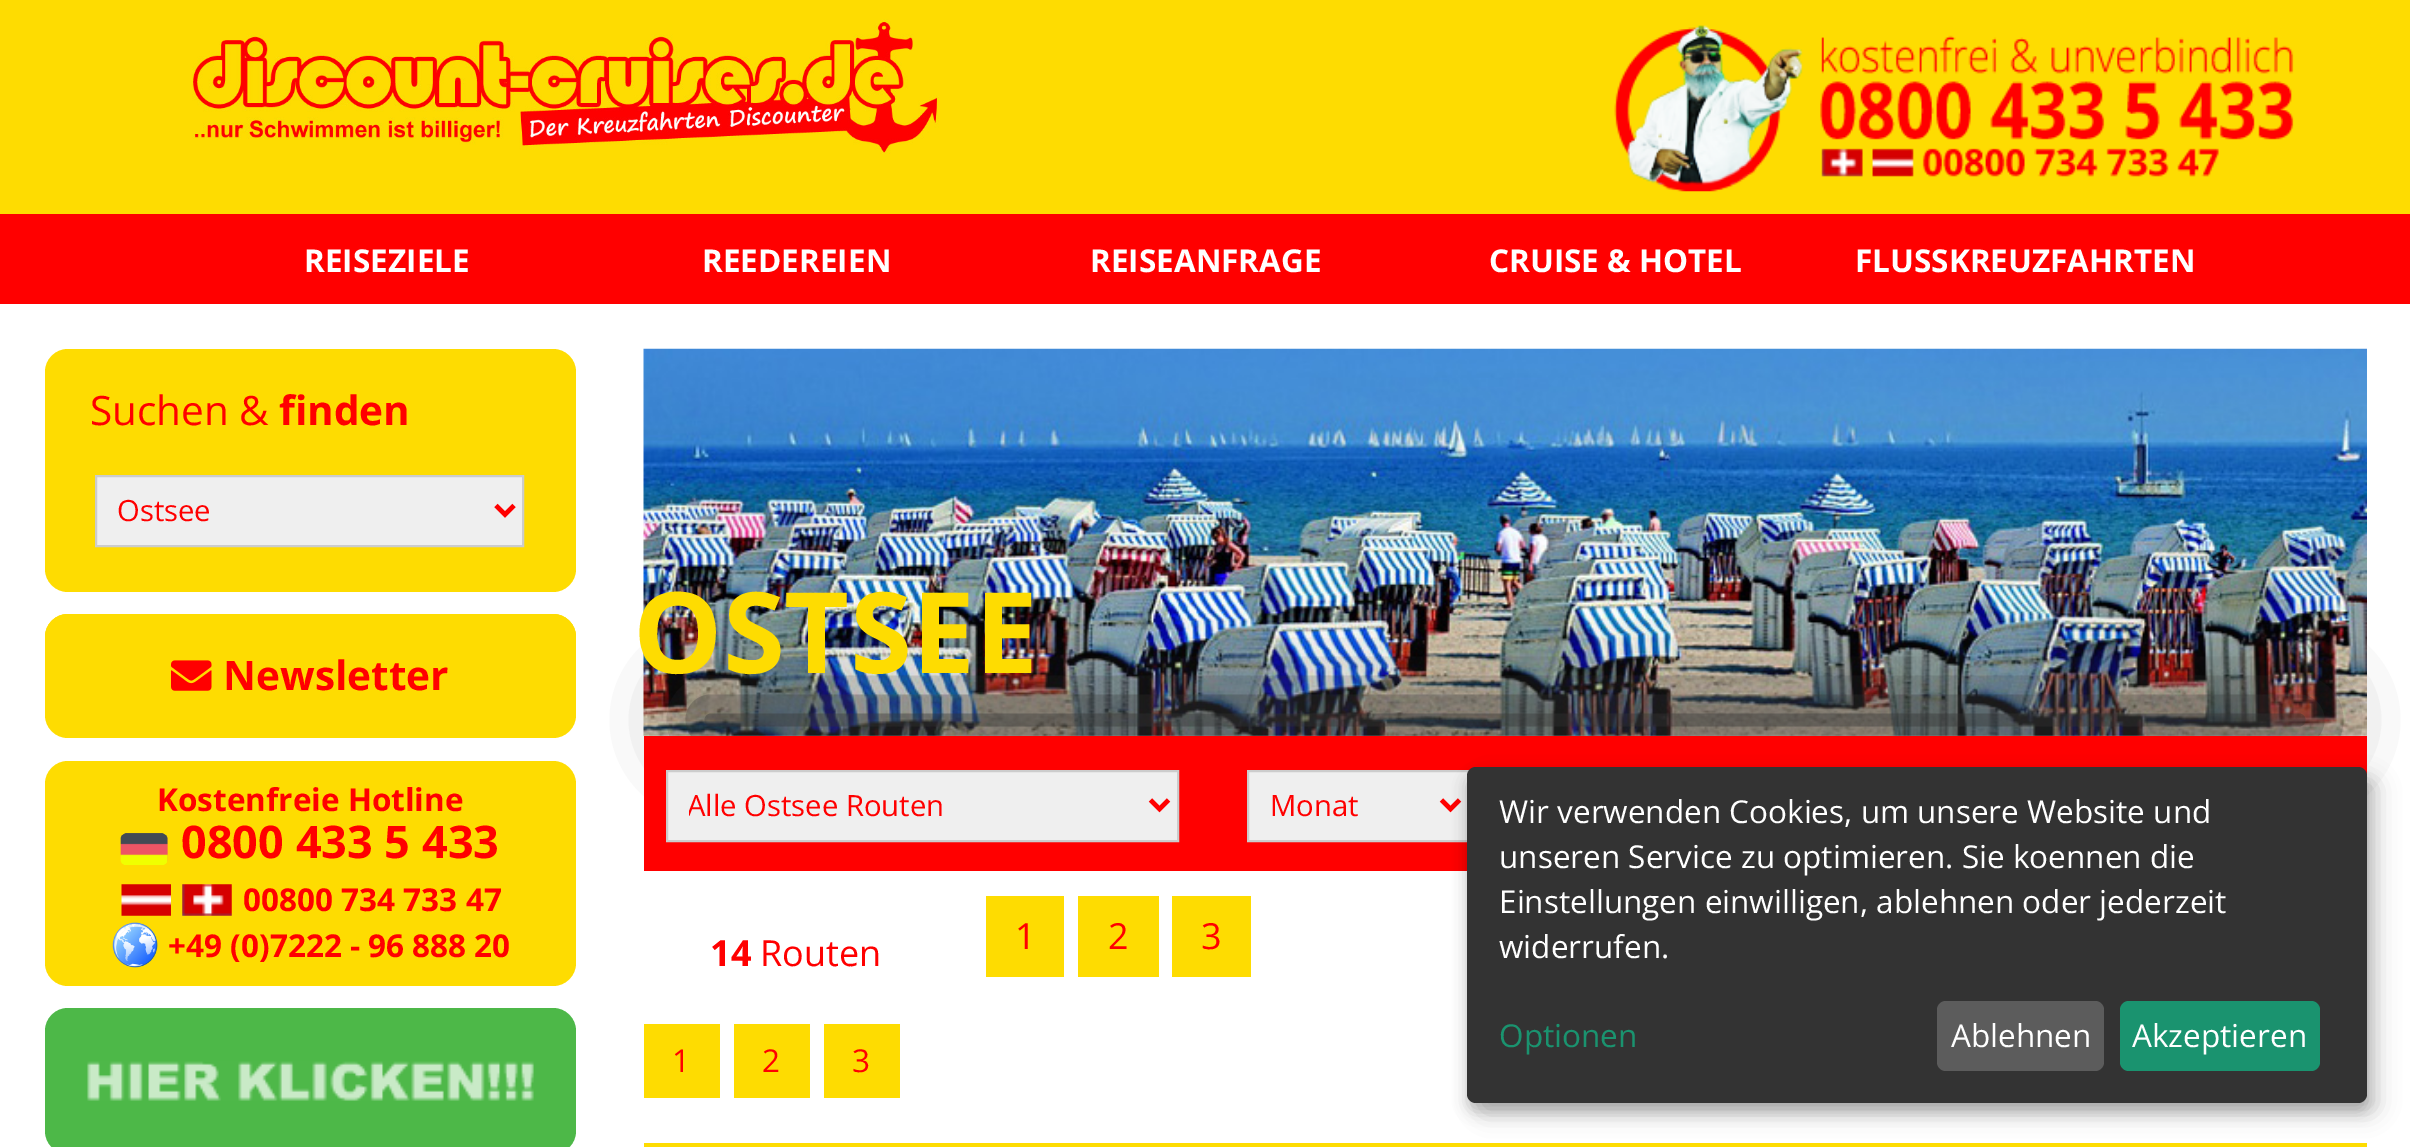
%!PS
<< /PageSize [2410 1147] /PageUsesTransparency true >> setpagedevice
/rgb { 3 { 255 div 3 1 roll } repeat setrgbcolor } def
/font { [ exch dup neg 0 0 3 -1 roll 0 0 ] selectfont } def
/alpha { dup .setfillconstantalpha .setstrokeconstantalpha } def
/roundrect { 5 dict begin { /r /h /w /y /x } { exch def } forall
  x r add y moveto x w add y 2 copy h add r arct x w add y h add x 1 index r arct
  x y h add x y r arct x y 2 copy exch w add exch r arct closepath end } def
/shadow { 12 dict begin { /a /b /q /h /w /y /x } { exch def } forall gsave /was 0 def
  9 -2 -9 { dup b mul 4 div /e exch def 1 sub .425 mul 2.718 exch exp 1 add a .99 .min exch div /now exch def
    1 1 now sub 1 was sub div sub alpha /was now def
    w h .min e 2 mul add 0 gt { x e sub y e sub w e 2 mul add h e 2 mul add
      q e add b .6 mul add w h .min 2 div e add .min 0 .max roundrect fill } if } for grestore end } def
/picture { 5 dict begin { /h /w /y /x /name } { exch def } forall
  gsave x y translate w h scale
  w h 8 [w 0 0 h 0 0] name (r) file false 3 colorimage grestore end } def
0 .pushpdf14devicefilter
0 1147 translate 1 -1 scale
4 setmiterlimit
254 220 1 rgb
0 0 2410 1147 rectfill
(img/1.rgb) 192 19 747 135 picture
(img/2.rgb) 1614 25 680 167 picture
255 0 0 rgb
0 214 2410 90 rectfill
255 255 255 rgb
0 304 2410 843 rectfill
254 220 1 rgb
45 349 531 243 23 roundrect fill
239 239 239 rgb
96 476 moveto 523 476 lineto 523 546 lineto 96 546 lineto closepath gsave fill grestore
204 204 204 rgb
2 setlinewidth
stroke
255 0 0 rgb
4.5 setlinewidth
496 505.5 moveto 505 514.5 lineto 514 505.5 lineto stroke
254 220 1 rgb
45 614 531 124 23 roundrect fill
45 614 531 90 23 roundrect fill
(img/3.rgb) 171 660 41 31 picture
45 761 531 225 23 roundrect fill
(img/4.rgb) 120 833 48 32 picture
(img/5.rgb) 121 884 50 32 picture
(img/6.rgb) 182 884 50 32 picture
(img/7.rgb) 112 922 46 46 picture
77 184 72 rgb
45 1008 531 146 23 roundrect fill
(img/8.rgb) 87 1061 447 40 picture
(img/9.rgb) 643 348 1724 388 picture
51 51 51 rgb
695 704 1620 32 0 38 1 shadow
255 0 0 rgb
644 736 1723 135 rectfill
239 239 239 rgb
667 771 moveto 1178 771 lineto 1178 841 lineto 667 841 lineto closepath gsave fill grestore
204 204 204 rgb
2 setlinewidth
stroke
255 0 0 rgb
4.5 setlinewidth
1150.5 800 moveto 1159.5 809 lineto 1168.5 800 lineto stroke
239 239 239 rgb
1249 772 219 68 rectfill
204 204 204 rgb
2 setlinewidth
1248 771 223 70 rectstroke
255 0 0 rgb
4.5 setlinewidth
1441.5 800 moveto 1450.5 809 lineto 1459.5 800 lineto stroke
[
  [986 896 78 81 254 220 1]
  [1078 896 81 81 254 220 1]
  [1172 896 79 81 254 220 1]
  [644 1024 76 74 254 220 1]
  [734 1024 76 74 254 220 1]
  [824 1024 76 74 254 220 1]
  [644 1143 1723 4 254 220 1]
] { aload pop rgb rectfill } forall
0 0 0 rgb
1478 779 900 335 9 11 0.19 shadow
1467 776 900 336 9 7 0.2 shadow
51 51 51 rgb
1467 767 900 336 9 roundrect fill
92 92 92 rgb
1937 1001 167 70 9 roundrect fill
26 147 111 rgb
2120 1001 200 70 9 roundrect fill
/OpenSans-Bold 31.5 font
255 255 255 rgb
[
  [(REISEZIELE) 304 272]
  [(REEDEREIEN) 702 272]
  [(REISEANFRAGE) 1090 272]
  [(CRUISE & HOTEL) 1489 272]
  [(FLUSSKREUZFAHRTEN) 1855 272]
] { aload pop moveto show } forall
/OpenSans-Regular 40.5 font
255 0 0 rgb
90 425 moveto (Suchen &) show
/OpenSans-Bold 40.5 font
279 425 moveto (finden) show
/OpenSans-Regular 29.25 font
117 521 moveto (Ostsee) show
/OpenSans-Bold 40.5 font
223 690 moveto (Newsletter) show
/OpenSans-Bold 31.5 font
157 811 moveto (Kostenfreie Hotline) show
/OpenSans-Bold 45 font
181 858 moveto (0800 433 5 433) show
/OpenSans-Bold 31.5 font
243 911 moveto (00800 734 733 47) show
168 957 moveto (+49 \(0\)7222 - 96 888 20) show
/OpenSans-Bold 112.5 font
254 220 1 rgb
633 673 moveto (OSTSEE) show
gsave
689 783 441 45 rectclip
/OpenSans-Regular 29.25 font
255 0 0 rgb
687 816 moveto (Alle Ostsee Routen) show
grestore
/OpenSans-Regular 29.25 font
255 0 0 rgb
1270 816 moveto (Monat) show
/OpenSans-Regular 36 font
[
  [(1) 1015 949]
  [(2) 1108 949]
  [(3) 1201 949]
] { aload pop moveto show } forall
/OpenSans-Bold 36 font
710 966 moveto (14) show
/OpenSans-Regular 36 font
760 966 moveto (Routen) show
/OpenSans-Regular 31.5 font
[
  [(1) 672 1072]
  [(2) 762 1072]
  [(3) 852 1072]
] { aload pop moveto show } forall
255 255 255 rgb
[
  [(Wir verwenden Cookies, um unsere Website und) 1499 823]
  [(unseren Service zu optimieren. Sie koennen die) 1499 868]
  [(Einstellungen einwilligen, ablehnen oder jederzeit) 1499 913]
  [(widerrufen.) 1499 958]
] { aload pop moveto show } forall
26 147 111 rgb
1499 1047 moveto (Optionen) show
255 255 255 rgb
1951 1047 moveto (Ablehnen) show
2132 1047 moveto (Akzeptieren) show
.poppdf14devicefilter showpage
